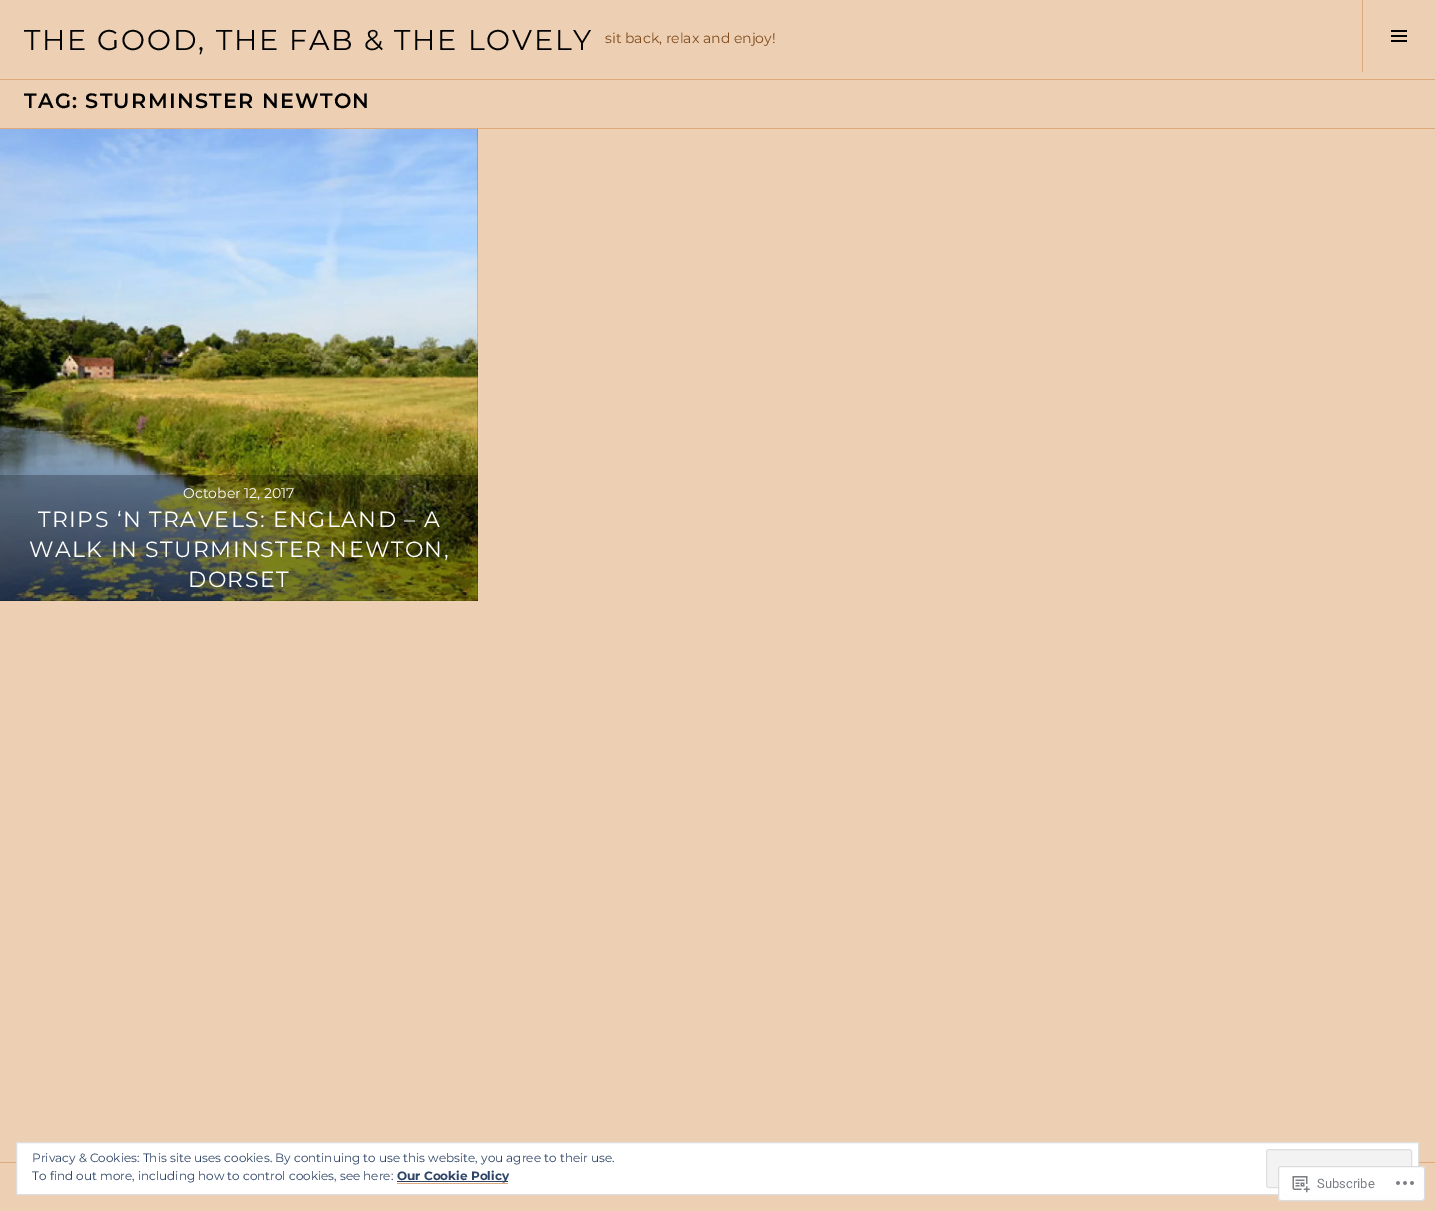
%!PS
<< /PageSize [1435 1211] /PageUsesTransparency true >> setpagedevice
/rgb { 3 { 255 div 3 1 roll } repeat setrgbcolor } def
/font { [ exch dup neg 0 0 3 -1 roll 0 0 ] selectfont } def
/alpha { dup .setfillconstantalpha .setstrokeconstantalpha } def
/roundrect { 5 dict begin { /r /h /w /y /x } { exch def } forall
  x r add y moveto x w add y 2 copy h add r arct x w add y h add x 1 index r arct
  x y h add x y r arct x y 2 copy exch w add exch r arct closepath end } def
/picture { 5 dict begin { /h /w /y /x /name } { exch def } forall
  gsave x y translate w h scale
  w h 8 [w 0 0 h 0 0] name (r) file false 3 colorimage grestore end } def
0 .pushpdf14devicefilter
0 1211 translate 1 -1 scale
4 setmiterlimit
237 207 179 rgb
0 0 1435 1211 rectfill
223 170 123 rgb
0 79 1435 1 rectfill
1362 0 1 72 rectfill
(img/1.rgb) 1391 30 16 12 picture
0 128 1435 1 rectfill
0 0 0 rgb
0 129 478 472 rectfill
(img/2.rgb) 0 129 478 472 picture
0.25 alpha
0 475 478 126 rectfill
1 alpha
223 170 123 rgb
0 1162 1435 1 rectfill
255 255 255 rgb
16.5 1142.5 moveto 1418.5 1142.5 lineto 1418.5 1194.5 lineto 16.5 1194.5 lineto closepath gsave fill grestore
222 222 222 rgb
stroke
243 243 243 rgb
1266.5 1149.5 145 38 2.5 roundrect gsave fill grestore
222 222 222 rgb
stroke
223 170 123 rgb
397 1183 111 1 rectfill
46 68 103 rgb
397 1181 111 1 rectfill
0.98 alpha
255 255 255 rgb
1278 1166 147 35 3 roundrect fill
220 220 222 rgb
1278.5 1166.5 146 34 2.5 roundrect stroke
1 alpha
(img/3.rgb) 1292 1176 18 17 picture
(img/4.rgb) 1396 1181 18 4 picture
/Montserrat-Regular 28.6 font
0 0 0 rgb
24 50 moveto 1.8 0 (THE GOOD, THE FAB & THE LOVELY) ashow
/Montserrat-Regular 14 font
127 73 25 rgb
605 43 moveto (sit back, relax and enjoy!) show
/Montserrat-SemiBold 20.75 font
0 0 0 rgb
24 108 moveto 1.3 0 (TAG: STURMINSTER NEWTON) ashow
/Montserrat-Regular 14 font
255 255 255 rgb
183 498 moveto (October 12, 2017) show
/Montserrat-Regular 22 font
38 527 moveto 1.4 0 (TRIPS ‘N TRAVELS: ENGLAND – A) ashow
29 557 moveto 1.4 0 (WALK IN STURMINSTER NEWTON,) ashow
188 587 moveto 1.4 0 (DORSET) ashow
/Montserrat-Regular 12 font
46 68 103 rgb
32 1162 moveto (Privacy & Cookies: This site uses cookies. By continuing to use this website, you agree to their use.) show
32 1180 moveto (To find out more, including how to control cookies, see here:) show
/Montserrat-Bold 12 font
397 1180 moveto (Our Cookie Policy) show
/Roboto-Regular 13 font
123 127 132 rgb
1317 1188 moveto (Subscribe) show
.poppdf14devicefilter showpage
